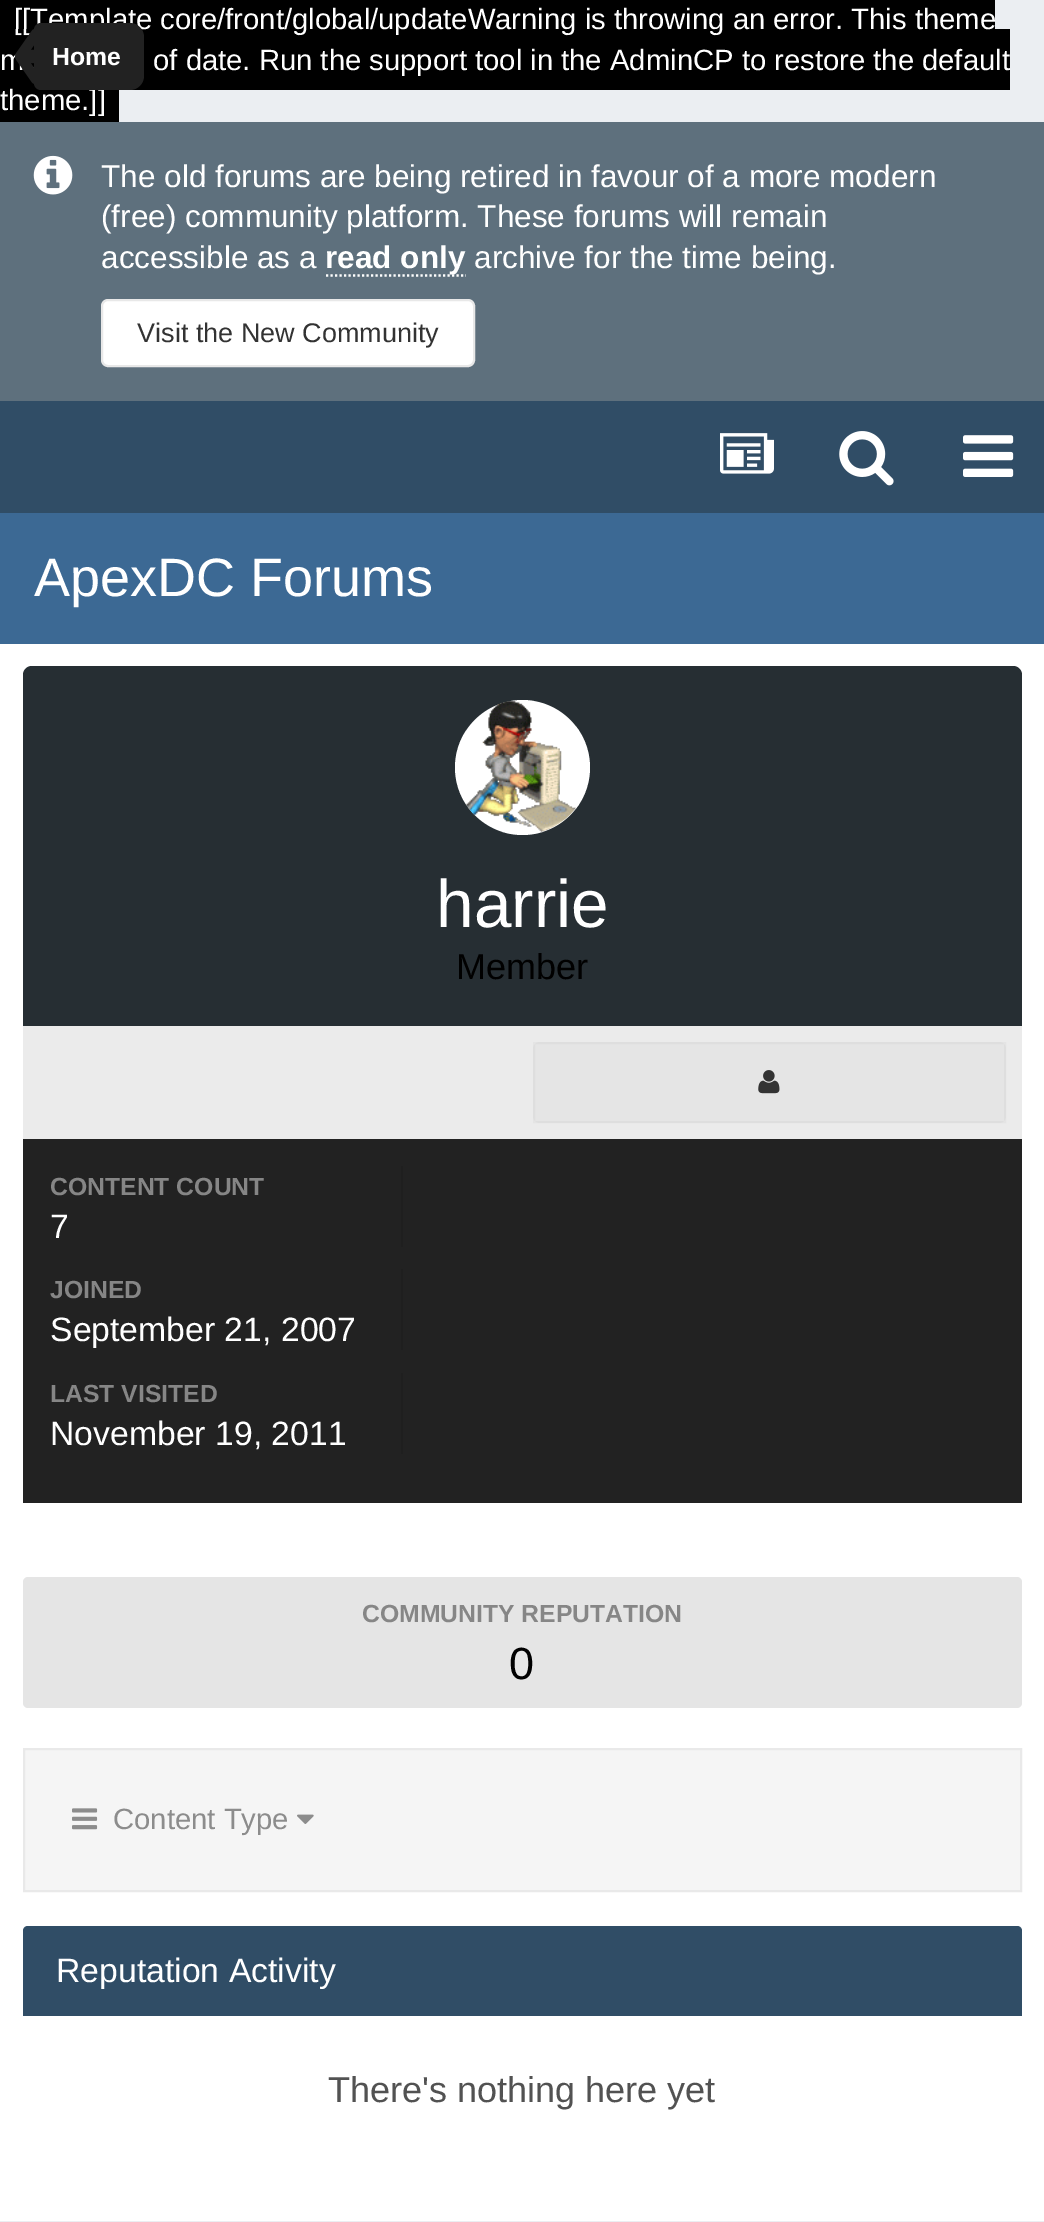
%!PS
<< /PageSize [1044 2222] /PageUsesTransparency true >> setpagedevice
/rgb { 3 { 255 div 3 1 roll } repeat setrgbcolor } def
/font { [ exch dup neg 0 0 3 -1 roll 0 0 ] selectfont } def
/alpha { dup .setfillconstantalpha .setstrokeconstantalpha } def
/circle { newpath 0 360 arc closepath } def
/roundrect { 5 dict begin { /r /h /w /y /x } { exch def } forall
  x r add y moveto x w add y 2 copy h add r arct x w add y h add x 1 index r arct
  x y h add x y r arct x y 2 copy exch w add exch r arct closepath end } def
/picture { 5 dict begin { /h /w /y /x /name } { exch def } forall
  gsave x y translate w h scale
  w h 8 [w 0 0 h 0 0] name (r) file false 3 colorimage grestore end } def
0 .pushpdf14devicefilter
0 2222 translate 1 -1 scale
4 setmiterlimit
235 238 242 rgb
0 0 1044 2222 rectfill
[
  [0 0 995 29 0 0 0]
  [0 29 1010 61 0 0 0]
  [0 401 1044 112 48 77 102]
] { aload pop rgb rectfill } forall
(img/2.rgb) 720 433 54 41 picture
(img/3.rgb) 839 431 55 55 picture
(img/4.rgb) 963 435 51 42 picture
0 0 0 rgb
0 90 119 32 rectfill
94 112 125 rgb
0 122 1044 279 rectfill
(img/5.rgb) 33 155 40 40 picture
255 255 255 rgb
2.2 setlinewidth
[2.25 2.25] 0 setdash
326 275.5 moveto 466 275.5 lineto stroke
102 300 372 66 6 roundrect gsave fill grestore
232 232 232 rgb
2 setlinewidth
[] 0 setdash
stroke
60 105 148 rgb
0 513 1044 131 rectfill
255 255 255 rgb
0 644 1044 1577 rectfill
38 46 51 rgb
32 666 moveto 1013 666 lineto 1018 666 1022 670 1022 675 curveto 1022 1026 lineto 23 1026 lineto 23 675 lineto 23 670 27 666 32 666 curveto closepath fill
255 255 255 rgb
522.5 767.5 67.5 circle fill
(img/6.rgb) 466 701 110 131 picture
235 235 235 rgb
23 1026 999 113 rectfill
229 229 229 rgb
533 1042 473 81 7 roundrect fill
0.03 alpha
0 0 0 rgb
534 1043 471 79 rectstroke
1 alpha
(img/7.rgb) 758 1070 22 24 picture
[
  [23 1139 999 364 34 34 34]
  [401 1166 2 81 31 31 31]
  [401 1269 2 81 31 31 31]
  [401 1373 2 81 31 31 31]
] { aload pop rgb rectfill } forall
229 229 229 rgb
23 1577 999 131 5 roundrect fill
245 245 245 rgb
24 1749 moveto 1021 1749 lineto 1021 1891 lineto 24 1891 lineto closepath gsave fill grestore
233 233 233 rgb
stroke
(img/8.rgb) 72 1808 26 22 picture
(img/9.rgb) 297 1814 17 10 picture
48 77 102 rgb
28 1926 moveto 1017 1926 lineto 1020 1926 1022 1928 1022 1931 curveto 1022 2016 lineto 23 2016 lineto 23 1931 lineto 23 1928 25 1926 28 1926 curveto closepath fill
/LiberationSans-Regular 29.25 font
255 255 255 rgb
14 29 moveto ([[Template core/front/global/updateWarning is throwing an error. This theme) show
0 70 moveto (m) show
(img/1.rgb) 15 29 19 55 picture
153 70 moveto (of date. Run the support tool in the AdminCP to restore the default) show
0 110 moveto (theme.]]) show
34 34 34 rgb
41 23 moveto 130 23 lineto 137.5 23 144 29.5 144 37 curveto 144 76 lineto 144 83.5 137.5 90 130 90 curveto 41 90 lineto 37 90 34 87 34 83 curveto 34 30 lineto 34 26 37 23 41 23 curveto closepath fill
/LiberationSans-Bold 24.75 font
255 255 255 rgb
52 65 moveto (Home) show
/LiberationSans-Regular 31.5 font
[
  [(The old forums are being retired in favour of a more modern) 101 187]
  [(\(free\) community platform. These forums will remain) 101 227]
  [(accessible as a) 101 268]
] { aload pop moveto show } forall
/LiberationSans-Bold 31.5 font
325 268 moveto (read only) show
/LiberationSans-Regular 31.5 font
474 268 moveto (archive for the time being.) show
/LiberationSans-Regular 27 font
51 51 51 rgb
137 342 moveto (Visit the New Community) show
/LiberationSans-Regular 54 font
255 255 255 rgb
34 596 moveto (ApexDC Forums) show
/LiberationSans-Regular 67.5 font
436 927 moveto (harrie) show
/LiberationSans-Regular 36 font
0 0 0 rgb
456 979 moveto (Member) show
/LiberationSans-Bold 24.75 font
134 134 134 rgb
50 1195 moveto (CONTENT COUNT) show
/LiberationSans-Regular 33.75 font
255 255 255 rgb
50 1238 moveto (7) show
/LiberationSans-Bold 24.75 font
134 134 134 rgb
50 1298 moveto (JOINED) show
/LiberationSans-Regular 33.75 font
255 255 255 rgb
50 1341 moveto (September 21, 2007) show
/LiberationSans-Bold 24.75 font
134 134 134 rgb
50 1402 moveto (LAST VISITED) show
/LiberationSans-Regular 33.75 font
255 255 255 rgb
50 1445 moveto (November 19, 2011) show
/LiberationSans-Bold 24.75 font
134 134 134 rgb
362 1622 moveto (COMMUNITY REPUTATION) show
/LiberationSans-Regular 45 font
0 0 0 rgb
509 1679 moveto (0) show
/LiberationSans-Regular 29.25 font
140 140 140 rgb
113 1829 moveto (Content Type) show
/LiberationSans-Regular 33.75 font
255 255 255 rgb
56 1982 moveto (Reputation Activity) show
/LiberationSans-Regular 36 font
82 82 82 rgb
328 2102 moveto (There's nothing here yet) show
.poppdf14devicefilter showpage
